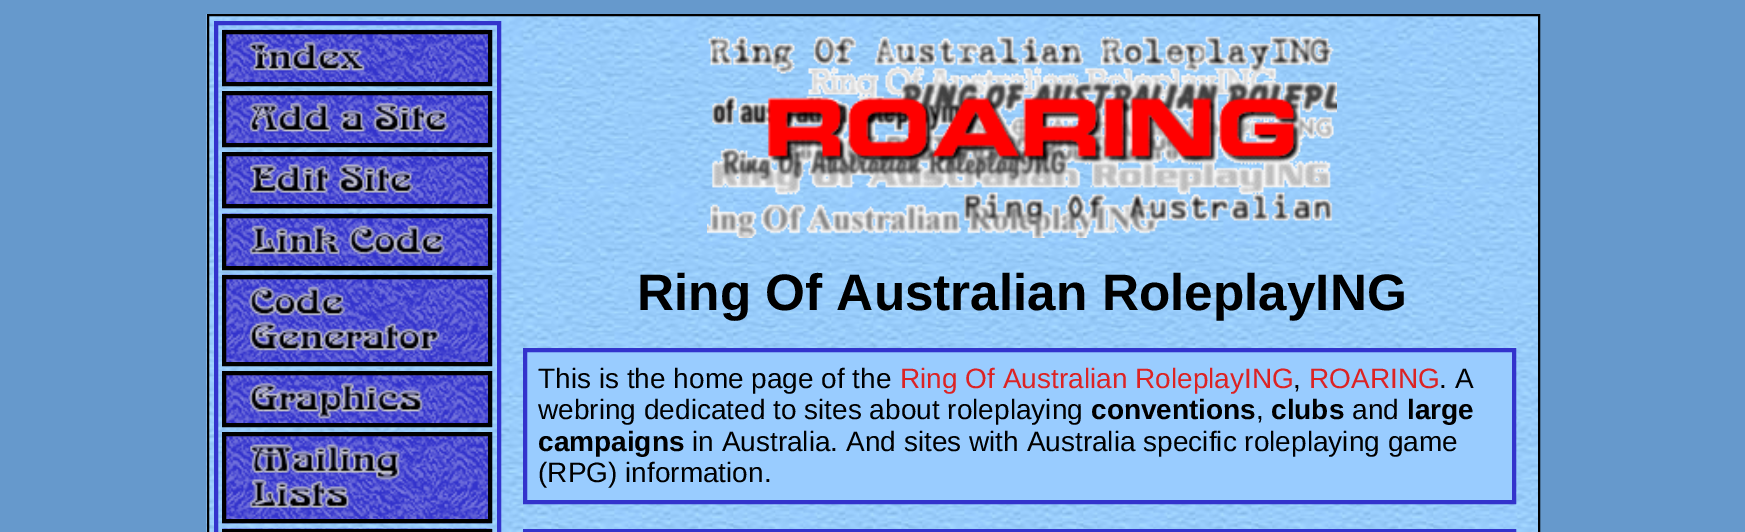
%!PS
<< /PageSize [1745 532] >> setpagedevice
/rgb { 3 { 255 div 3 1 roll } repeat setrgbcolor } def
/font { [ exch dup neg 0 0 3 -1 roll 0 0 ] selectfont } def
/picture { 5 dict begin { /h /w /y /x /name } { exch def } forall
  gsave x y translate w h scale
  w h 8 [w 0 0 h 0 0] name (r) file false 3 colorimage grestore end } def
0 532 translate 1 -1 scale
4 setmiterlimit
102 153 204 rgb
0 0 1745 532 rectfill
(img/1.rgb) 206 14 1332 518 picture
0 0 0 rgb
2 setlinewidth
208 15 1331 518 rectstroke
51 51 204 rgb
4 setlinewidth
216 23 283 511 rectstroke
(img/2.rgb) 222 29 270 53 picture
0 0 0 rgb
224 32 266 52 rectstroke
(img/3.rgb) 248 41 118 32 picture
(img/4.rgb) 226 95 262 48 picture
224 93 266 52 rectstroke
(img/5.rgb) 248 102 201 32 picture
(img/6.rgb) 222 156 270 53 picture
224 154 266 52 rectstroke
(img/7.rgb) 248 164 166 31 picture
(img/8.rgb) 222 213 270 53 picture
224 216 266 52 rectstroke
(img/9.rgb) 248 225 197 31 picture
(img/10.rgb) 222 274 270 88 picture
224 277 266 87 rectstroke
(img/11.rgb) 248 286 192 67 picture
(img/4.rgb) 226 375 262 48 picture
224 373 266 52 rectstroke
(img/12.rgb) 248 382 176 37 picture
(img/13.rgb) 222 436 270 88 picture
224 434 266 87 rectstroke
(img/14.rgb) 248 444 154 66 picture
(img/15.rgb) 222 528 270 1 picture
224 531 266 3 rectstroke
(img/16.rgb) 707 36 630 202 picture
153 204 255 rgb
525 350 moveto 1514 350 lineto 1514 502 lineto 525 502 lineto closepath gsave fill grestore
51 51 204 rgb
stroke
525 531 989 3 rectstroke
/LiberationSans-Bold 51.3 font
0 0 0 rgb
637 310 moveto (Ring Of Australian RoleplayING) show
/LiberationSans-Regular 28 font
538 388 moveto (This is the home page of the) show
220 35 35 rgb
900 388 moveto (Ring Of Australian RoleplayING) show
0 0 0 rgb
1293 388 moveto (,) show
220 35 35 rgb
1309 388 moveto (ROARING) show
0 0 0 rgb
1439 388 moveto (. A) show
538 419 moveto (webring dedicated to sites about roleplaying) show
/LiberationSans-Bold 28 font
1091 419 moveto (conventions) show
/LiberationSans-Regular 28 font
1256 419 moveto (,) show
/LiberationSans-Bold 28 font
1271 419 moveto (clubs) show
/LiberationSans-Regular 28 font
1352 419 moveto (and) show
/LiberationSans-Bold 28 font
1407 419 moveto (large) show
538 451 moveto (campaigns) show
/LiberationSans-Regular 28 font
692 451 moveto (in Australia. And sites with Australia specific roleplaying game) show
538 482 moveto (\(RPG\) information.) show
showpage
